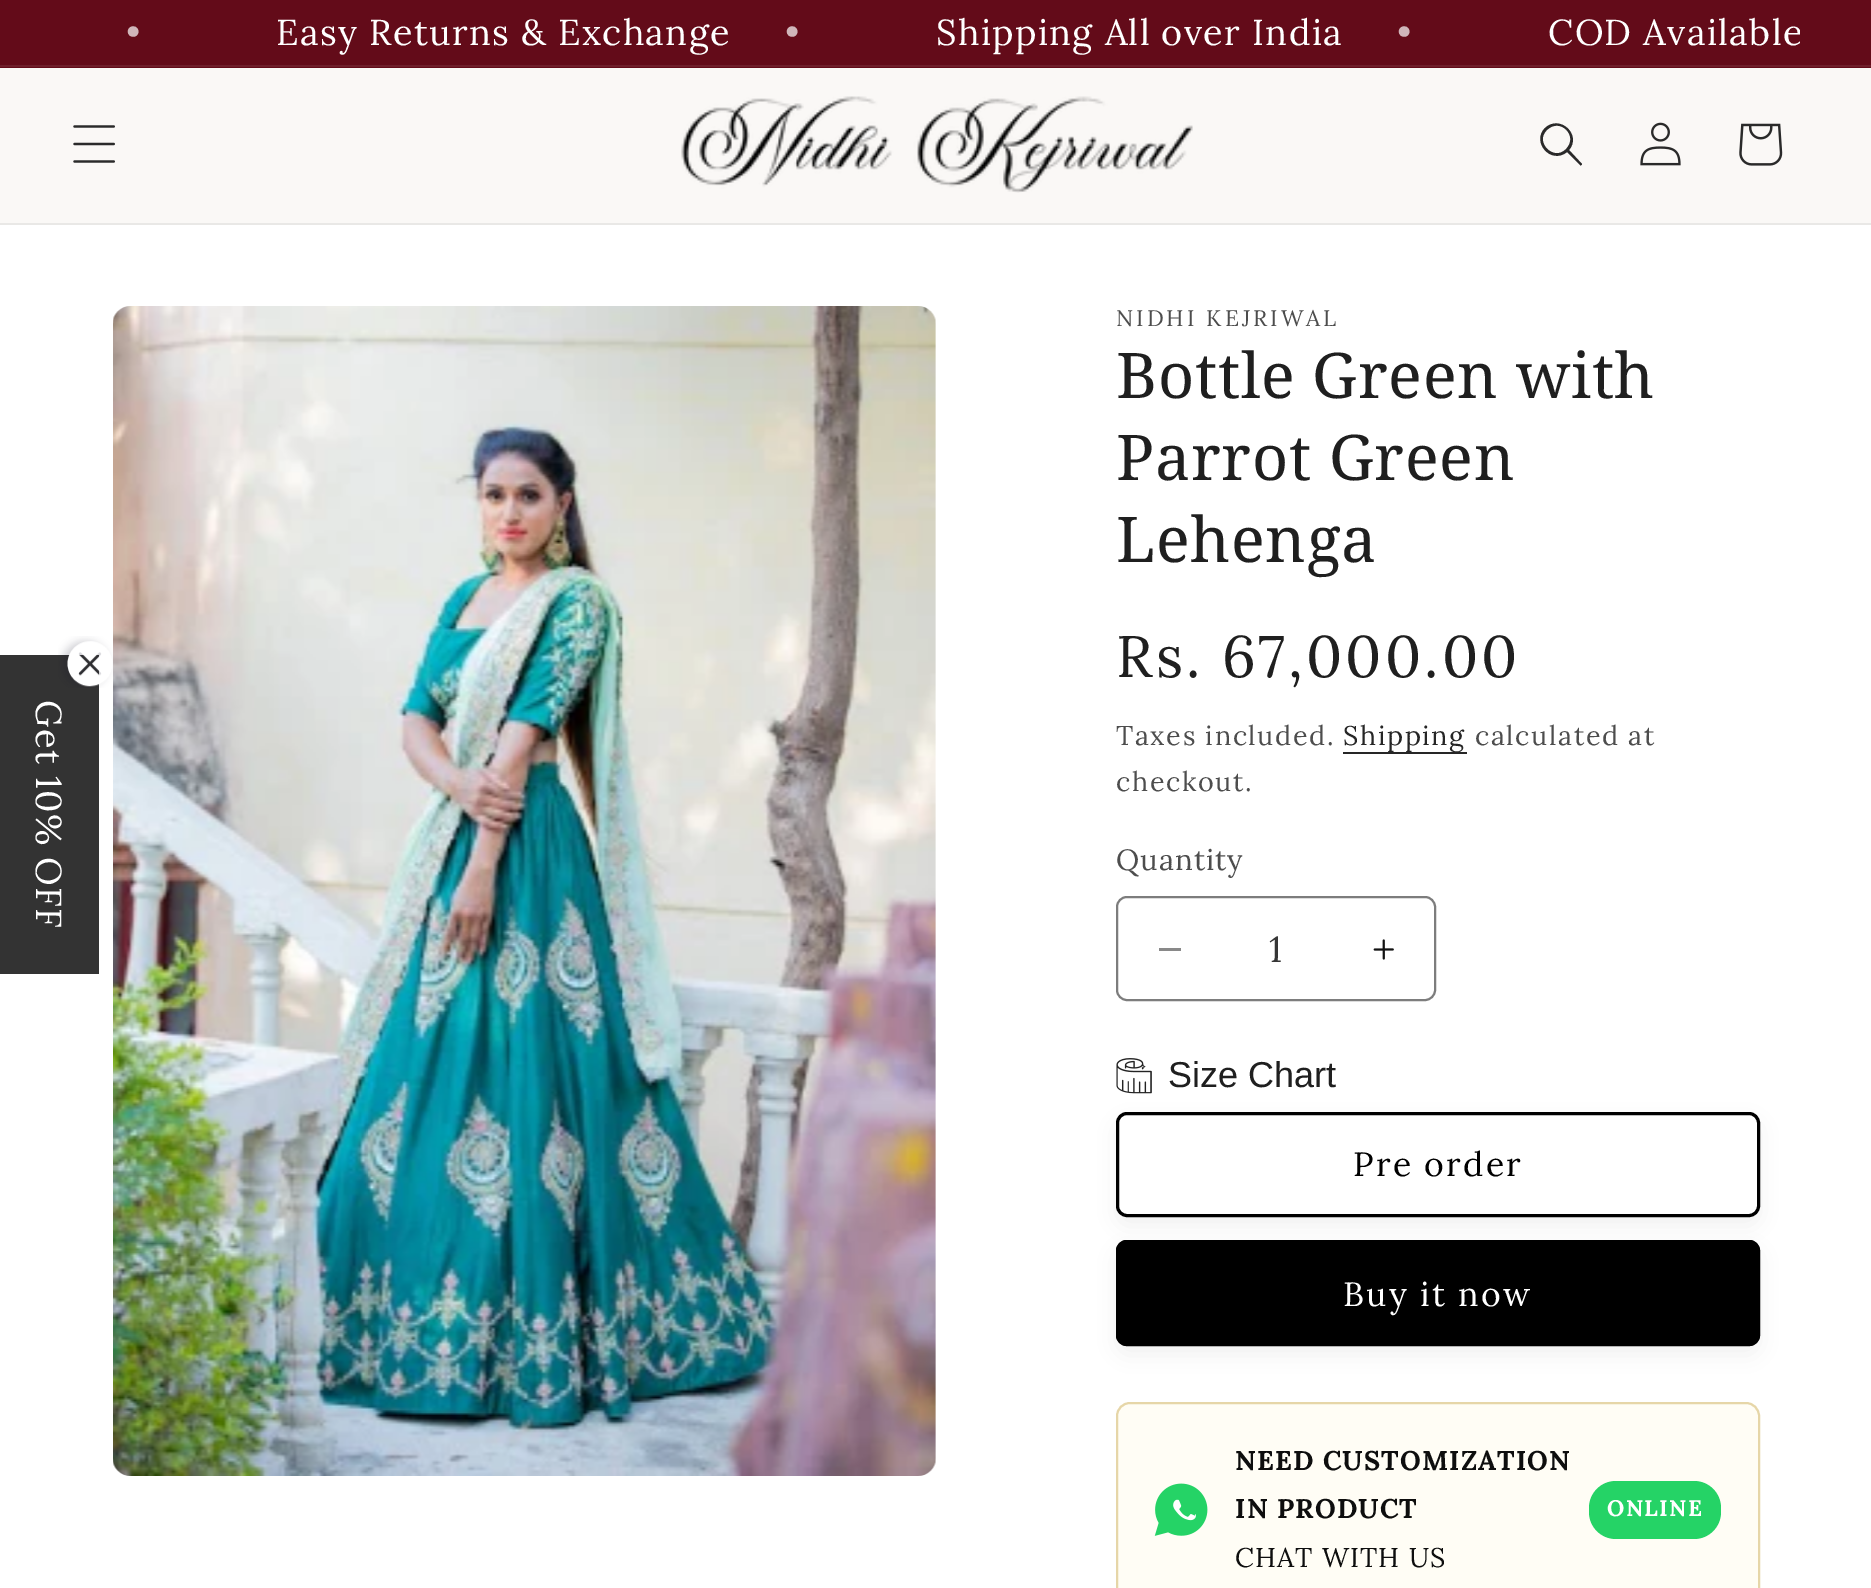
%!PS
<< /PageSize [1871 1588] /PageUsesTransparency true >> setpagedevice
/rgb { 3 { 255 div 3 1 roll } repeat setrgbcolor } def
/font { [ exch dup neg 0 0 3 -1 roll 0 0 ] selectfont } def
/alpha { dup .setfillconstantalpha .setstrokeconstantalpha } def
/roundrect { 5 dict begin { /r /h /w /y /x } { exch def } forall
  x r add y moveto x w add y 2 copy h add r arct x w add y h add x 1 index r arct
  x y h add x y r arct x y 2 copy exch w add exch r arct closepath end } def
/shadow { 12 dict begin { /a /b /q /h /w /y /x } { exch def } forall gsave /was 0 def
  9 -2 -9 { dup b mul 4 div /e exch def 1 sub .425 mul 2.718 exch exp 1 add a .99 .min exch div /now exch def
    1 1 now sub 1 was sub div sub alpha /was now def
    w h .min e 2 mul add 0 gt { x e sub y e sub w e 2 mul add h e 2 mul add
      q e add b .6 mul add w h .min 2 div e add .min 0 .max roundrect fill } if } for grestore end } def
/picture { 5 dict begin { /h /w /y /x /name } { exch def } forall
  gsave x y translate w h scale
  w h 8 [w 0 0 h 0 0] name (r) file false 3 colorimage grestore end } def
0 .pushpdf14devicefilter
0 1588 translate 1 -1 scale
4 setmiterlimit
255 255 255 rgb
0 0 1871 1588 rectfill
[
  [0 0 1871 68 99 11 25]
  [0 65 1871 2 111 31 43]
  [0 68 1871 155 250 248 246]
  [0 223 1871 2 233 232 230]
] { aload pop rgb rectfill } forall
(img/1.rgb) 73 125 42 38 picture
(img/2.rgb) 681 96 512 97 picture
42 42 42 rgb
1566 149 moveto 1554 162 1534 142 1547 130 curveto 1560 117 1579 136 1566 149 curveto 1567 152 moveto 1551 165 1531 142 1545 128 curveto 1560 114 1582 135 1569 150 curveto 1582 164 lineto 1582 165 1580 166 1580 165 curveto closepath eofill
(img/3.rgb) 1640 122 41 44 picture
(img/4.rgb) 1739 123 44 43 picture
51 51 51 rgb
0 655 99 319 rectfill
(img/5.rgb) 58 636 55 52 picture
(img/6.rgb) 113 306 823 1170 picture
38 38 38 rgb
1343 752 124 2 rectfill
137 137 137 rgb
1159 948 22 3 rectfill
(img/7.rgb) 1373 939 21 21 picture
125 125 125 rgb
2 setlinewidth
1117 897 318 103 10 roundrect stroke
18 18 18 rgb
1116 1121 644 105 11 11 0.05 shadow
(img/8.rgb) 1116 1058 36 36 picture
1116 1249 644 106 11 11 0.05 shadow
255 255 255 rgb
1116 1112 644 105 11 roundrect fill
0 0 0 rgb
3 setlinewidth
1117.5 1113.5 641 102 9.5 roundrect stroke
1116 1240 644 106 11 roundrect fill
2 setlinewidth
1117 1241 642 104 10 roundrect stroke
255 253 245 rgb
1117 1403 642 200 13 roundrect gsave fill grestore
230 214 168 rgb
stroke
(img/9.rgb) 1154 1483 54 53 picture
37 211 102 rgb
1589 1481 132 58 27 roundrect fill
/Lora-Regular 36 font
208 182 186 rgb
126 45 moveto 1.35 0 (•) ashow
255 255 255 rgb
276 45 moveto 1.35 0 (Easy Returns & Exchange) ashow
208 182 186 rgb
785 45 moveto 1.35 0 (•) ashow
255 255 255 rgb
936 45 moveto 1.35 0 (Shipping All over India) ashow
208 182 186 rgb
1397 45 moveto 1.35 0 (•) ashow
gsave
72 0 1728 65 rectclip
255 255 255 rgb
1548 45 moveto 1.35 0 (COD Available) ashow
grestore
255 255 255 rgb
gsave 36 700 translate 90 rotate 0 0 moveto 1.35 0 (Get 10% OFF) ashow grestore
/Lora-Regular 22.5 font
77 77 77 rgb
1116 326 moveto 3 0 (NIDHI KEJRIWAL) ashow
/NotoSerif-Regular 63 font
31 31 31 rgb
1116 398 moveto 0.7 0 (Bottle Green with) ashow
1116 480 moveto 0.7 0 (Parrot Green) ashow
1116 562 moveto 0.7 0 (Lehenga) ashow
/Lora-Regular 58.5 font
1116 677 moveto 3 0 (Rs. 67,000.00) ashow
/Lora-Regular 27 font
77 77 77 rgb
1116 745 moveto 1.6 0 (Taxes included.) ashow
38 38 38 rgb
1343 745 moveto 1.6 0 (Shipping) ashow
77 77 77 rgb
1475 745 moveto 1.6 0 (calculated at) ashow
1116 791 moveto 1.6 0 (checkout.) ashow
/Lora-Regular 29.25 font
1116 870 moveto 1 0 (Quantity) ashow
/Lora-Regular 36 font
54 54 54 rgb
1269 962 moveto (1) show
/LiberationSans-Regular 36 font
31 31 31 rgb
1168 1087 moveto (Size Chart) show
/Lora-Regular 33.75 font
0 0 0 rgb
1353 1176 moveto 2.25 0 (Pre order) ashow
255 255 255 rgb
1343 1306 moveto 2.25 0 (Buy it now) ashow
/Lora-Bold 27 font
14 14 14 rgb
1235 1470 moveto 1.1 0 (NEED CUSTOMIZATION) ashow
1235 1518 moveto 1.1 0 (IN PRODUCT) ashow
/Lora-Regular 27 font
1235 1567 moveto 1.1 0 (CHAT WITH US) ashow
/Lora-Bold 22.5 font
255 255 255 rgb
1607 1516 moveto 1.35 0 (ONLINE) ashow
.poppdf14devicefilter showpage
